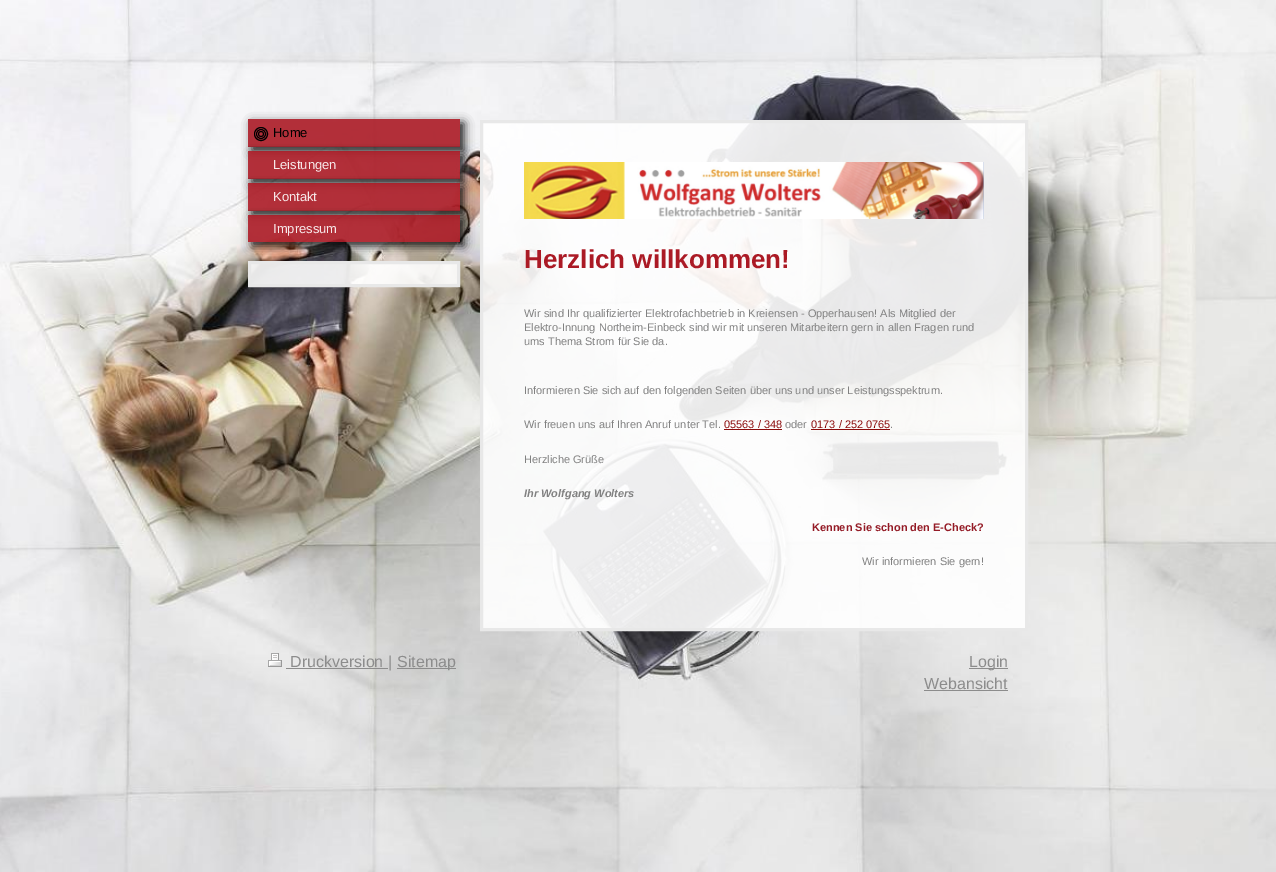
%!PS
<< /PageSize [1276 872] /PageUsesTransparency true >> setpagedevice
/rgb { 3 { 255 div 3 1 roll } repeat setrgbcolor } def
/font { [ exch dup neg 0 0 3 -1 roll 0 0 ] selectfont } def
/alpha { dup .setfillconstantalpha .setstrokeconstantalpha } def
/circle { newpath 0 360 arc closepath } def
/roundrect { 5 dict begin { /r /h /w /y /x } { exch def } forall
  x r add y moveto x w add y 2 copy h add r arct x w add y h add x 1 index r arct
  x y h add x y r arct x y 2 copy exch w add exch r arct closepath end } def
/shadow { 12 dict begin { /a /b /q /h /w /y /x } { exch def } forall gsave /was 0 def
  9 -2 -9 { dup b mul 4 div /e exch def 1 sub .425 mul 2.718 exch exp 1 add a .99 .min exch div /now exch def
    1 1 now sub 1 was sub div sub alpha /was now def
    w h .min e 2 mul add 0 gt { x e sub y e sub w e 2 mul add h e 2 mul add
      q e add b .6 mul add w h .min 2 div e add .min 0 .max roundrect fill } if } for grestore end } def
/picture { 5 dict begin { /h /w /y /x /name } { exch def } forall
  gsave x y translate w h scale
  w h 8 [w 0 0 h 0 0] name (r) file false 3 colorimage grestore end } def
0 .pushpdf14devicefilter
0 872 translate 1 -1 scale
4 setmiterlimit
255 255 255 rgb
0 0 1276 872 rectfill
(img/1.rgb) 0 0 1276 872 picture
gsave
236 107 moveto 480 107 lineto 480 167 lineto 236 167 lineto closepath 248 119 moveto 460 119 lineto 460 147 lineto 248 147 lineto closepath eoclip newpath
0 0 0 rgb
252 123 212 28 0 5 0.9 shadow
grestore
0.9 alpha
171 26 37 rgb
248 119 212 28 rectfill
0.1 alpha
0 0 0 rgb
248 146 212 1 rectfill
1 alpha
261 134 6.5 circle stroke
261 134 4.5 circle stroke
261 134 2.5 circle stroke
gsave
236 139 moveto 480 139 lineto 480 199 lineto 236 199 lineto closepath 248 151 moveto 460 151 lineto 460 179 lineto 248 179 lineto closepath eoclip newpath
252 155 212 28 0 5 0.9 shadow
grestore
0.9 alpha
171 26 37 rgb
248 151 212 28 rectfill
0.1 alpha
0 0 0 rgb
248 178 212 1 rectfill
gsave
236 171 moveto 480 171 lineto 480 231 lineto 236 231 lineto closepath 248 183 moveto 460 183 lineto 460 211 lineto 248 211 lineto closepath eoclip newpath
1 alpha
252 187 212 28 0 5 0.9 shadow
grestore
0.9 alpha
171 26 37 rgb
248 183 212 28 rectfill
0.1 alpha
0 0 0 rgb
248 210 212 1 rectfill
0.9 alpha
255 255 255 rgb
249.5 262.5 moveto 458.5 262.5 lineto 458.5 285.5 lineto 249.5 285.5 lineto closepath fill
1 alpha
232 232 232 rgb
3 setlinewidth
249.5 262.5 moveto 458.5 262.5 lineto 458.5 285.5 lineto 249.5 285.5 lineto closepath stroke
gsave
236 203 moveto 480 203 lineto 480 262 lineto 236 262 lineto closepath 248 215 moveto 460 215 lineto 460 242 lineto 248 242 lineto closepath eoclip newpath
0 0 0 rgb
252 219 212 27 0 5 0.9 shadow
grestore
0.9 alpha
171 26 37 rgb
248 215 212 27 rectfill
255 255 255 rgb
481.5 121.5 moveto 1026.5 121.5 lineto 1026.5 629.5 lineto 481.5 629.5 lineto closepath fill
1 alpha
232 232 232 rgb
481.5 121.5 moveto 1026.5 121.5 lineto 1026.5 629.5 lineto 481.5 629.5 lineto closepath stroke
(img/2.rgb) 524 162 460 57 picture
140 12 12 rgb
724 429 58 1 rectfill
811 429 79 1 rectfill
(img/3.rgb) 268 653 14 14 picture
[
  [286 668 102 1 140 140 140]
  [397 668 59 1 140 140 140]
  [969 668 39 1 140 140 140]
  [924 690 84 1 140 140 140]
] { aload pop rgb rectfill } forall
/LiberationSans-Regular 13 font
0 0 0 rgb
273 137 moveto (Home) show
247 232 233 rgb
[
  [(Leistungen) 273 169]
  [(Kontakt) 273 201]
  [(Impressum) 273 233]
] { aload pop moveto show } forall
/LiberationSans-Bold 26 font
171 26 37 rgb
524 268 moveto (Herzlich willkommen!) show
/LiberationSans-Regular 11 font
129 129 129 rgb
[
  [(Wir sind Ihr qualifizierter Elektrofachbetrieb in Kreiensen - Opperhausen! Als Mitglied der) 524 317]
  [(Elektro-Innung Northeim-Einbeck sind wir mit unseren Mitarbeitern gern in allen Fragen rund) 524 331]
  [(ums Thema Strom für Sie da.) 524 345]
  [(Informieren Sie sich auf den folgenden Seiten über uns und unser Leistungsspektrum.) 524 394]
  [(Wir freuen uns auf Ihren Anruf unter Tel.) 524 428]
] { aload pop moveto show } forall
140 12 12 rgb
724 428 moveto (05563 / 348) show
129 129 129 rgb
785 428 moveto (oder) show
140 12 12 rgb
811 428 moveto (0173 / 252 0765) show
129 129 129 rgb
890 428 moveto (.) show
524 463 moveto (Herzliche Grüße) show
/LiberationSans-BoldItalic 11 font
524 497 moveto (Ihr Wolfgang Wolters) show
/LiberationSans-Bold 11 font
148 27 38 rgb
812 531 moveto (Kennen Sie schon den E-Check?) show
/LiberationSans-Regular 11 font
129 129 129 rgb
862 565 moveto (Wir informieren Sie gern!) show
/LiberationSans-Regular 16 font
140 140 140 rgb
[
  [(Druckversion |) 290 667]
  [(Sitemap) 397 667]
  [(Login) 969 667]
  [(Webansicht) 924 689]
] { aload pop moveto show } forall
.poppdf14devicefilter showpage
